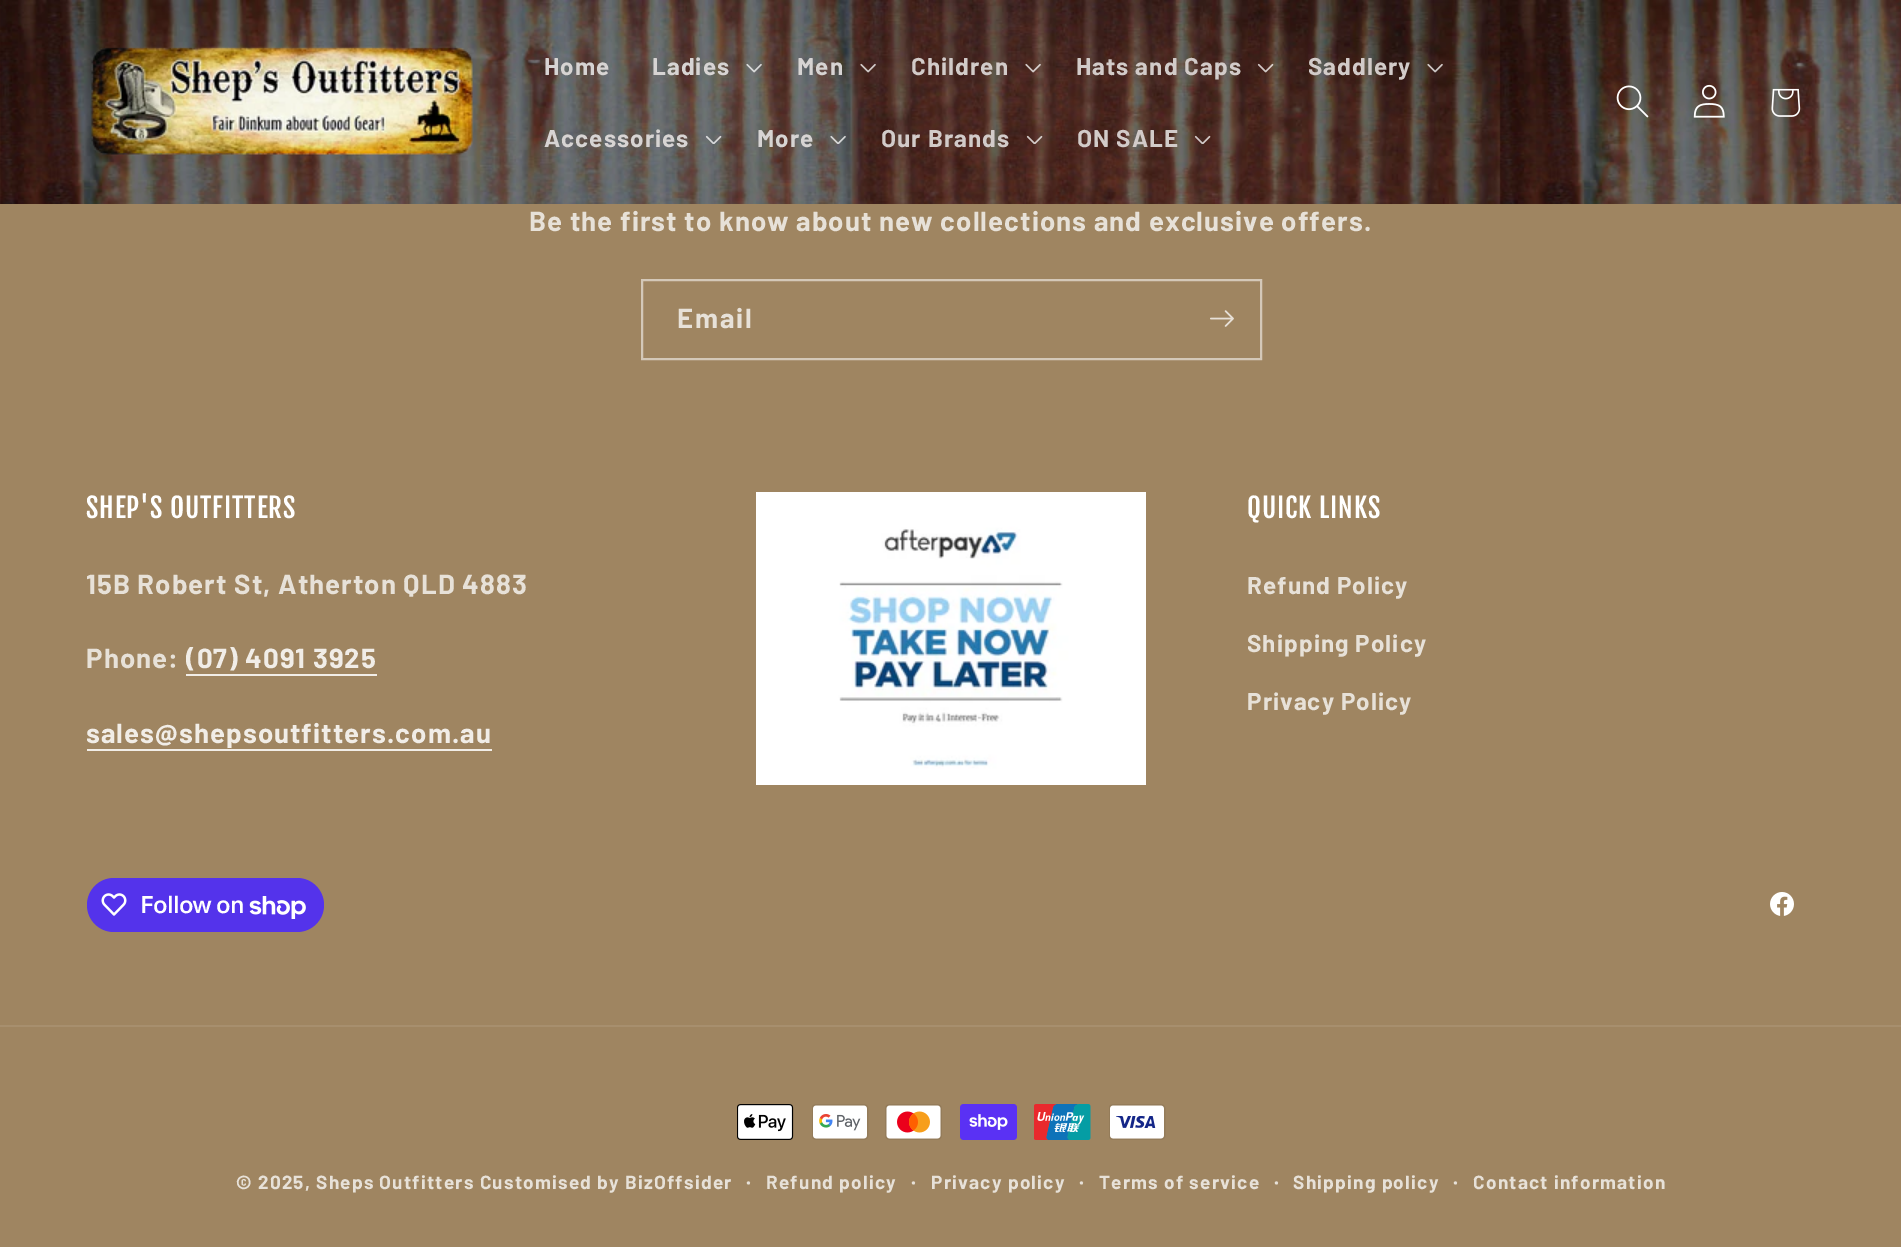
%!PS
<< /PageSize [1901 1247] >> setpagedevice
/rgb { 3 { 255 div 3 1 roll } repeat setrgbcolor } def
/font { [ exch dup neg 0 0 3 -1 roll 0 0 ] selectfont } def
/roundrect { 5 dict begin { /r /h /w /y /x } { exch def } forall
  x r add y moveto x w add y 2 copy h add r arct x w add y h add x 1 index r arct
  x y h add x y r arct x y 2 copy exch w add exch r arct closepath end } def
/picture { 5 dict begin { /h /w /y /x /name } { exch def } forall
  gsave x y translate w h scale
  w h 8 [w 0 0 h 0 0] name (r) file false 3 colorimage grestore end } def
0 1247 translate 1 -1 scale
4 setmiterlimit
159 133 97 rgb
0 0 1901 1247 rectfill
(img/1.rgb) 0 0 1901 204 picture
(img/2.rgb) 91 46 382 109 picture
(img/3.rgb) 746 63 16 10 picture
(img/4.rgb) 860 63 16 10 picture
(img/5.rgb) 1025 63 16 10 picture
(img/6.rgb) 1257 63 17 10 picture
(img/7.rgb) 1427 63 16 10 picture
(img/8.rgb) 705 135 17 9 picture
(img/9.rgb) 830 135 16 9 picture
(img/10.rgb) 1026 135 17 9 picture
(img/11.rgb) 1194 135 17 9 picture
(img/12.rgb) 1616 85 33 33 picture
(img/13.rgb) 1693 84 32 34 picture
(img/14.rgb) 1771 88 30 29 picture
212 200 184 rgb
2 setlinewidth
642 280 619 79 rectstroke
(img/15.rgb) 1210 310 24 17 picture
241 237 231 rgb
186 674 191 2 rectfill
87 749 405 2 rectfill
(img/16.rgb) 756 492 390 293 picture
84 51 235 rgb
87 878 237 54 27 roundrect fill
(img/17.rgb) 101 893 26 23 picture
(img/18.rgb) 249 896 57 23 picture
(img/19.rgb) 1770 892 24 24 picture
167 143 110 rgb
0 1025 1901 2 rectfill
(img/20.rgb) 737 1104 57 36 picture
(img/21.rgb) 812 1104 57 36 picture
(img/22.rgb) 885 1104 57 36 picture
(img/23.rgb) 960 1104 57 36 picture
(img/24.rgb) 1034 1104 57 36 picture
(img/25.rgb) 1109 1104 57 36 picture
/Barlow-Bold 24.25 font
215 212 211 rgb
544 75 moveto 1.03 0 (Home) ashow
652 75 moveto 1.03 0 (Ladies) ashow
797 75 moveto 1.03 0 (Men) ashow
210 203 201 rgb
911 75 moveto 1.03 0 (Children) ashow
1076 75 moveto 1.03 0 (Hats and Caps) ashow
1308 75 moveto 1.03 0 (Saddlery) ashow
215 212 211 rgb
544 147 moveto 1.03 0 (Accessories) ashow
757 147 moveto 1.03 0 (More) ashow
210 203 201 rgb
881 147 moveto 1.03 0 (Our Brands) ashow
1077 147 moveto 1.03 0 (ON SALE) ashow
/Barlow-Bold 27.6 font
231 225 216 rgb
529 231 moveto 1.03 0 (Be the first to know about new collections and exclusive offers.) ashow
677 328 moveto 1.75 0 (Email) ashow
/FjallaOne-Regular 27 font
255 255 255 rgb
86 518 moveto 0.9 0 (SHEP'S OUTFITTERS) ashow
/Barlow-Bold 27.6 font
231 225 216 rgb
86 594 moveto 1.03 0 (15B Robert St, Atherton QLD 4883) ashow
86 668 moveto 1.03 0 (Phone:) ashow
241 237 231 rgb
186 668 moveto 1.03 0 (\(07\) 4091 3925) ashow
86 743 moveto 1.03 0 (sales@shepsoutfitters.com.au) ashow
/FjallaOne-Regular 27 font
255 255 255 rgb
1247 518 moveto 0.9 0 (QUICK LINKS) ashow
/Barlow-Bold 24.25 font
231 225 216 rgb
1247 594 moveto 1.03 0 (Refund Policy) ashow
1247 652 moveto 1.03 0 (Shipping Policy) ashow
1247 710 moveto 1.03 0 (Privacy Policy) ashow
/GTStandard-SemiBold 24 font
255 255 255 rgb
140 913 moveto -0.75 0 (Follow on) ashow
/Barlow-Bold 19 font
231 225 216 rgb
236 1189 moveto 1.2 0 (© 2025, Sheps Outfitters Customised by BizOffsider) ashow
/Barlow-Bold 21 font
746 1189 moveto 1.2 0 (·) ashow
/Barlow-Bold 19 font
766 1189 moveto 1.2 0 (Refund policy) ashow
/Barlow-Bold 21 font
911 1189 moveto 1.2 0 (·) ashow
/Barlow-Bold 19 font
931 1189 moveto 1.2 0 (Privacy policy) ashow
/Barlow-Bold 21 font
1079 1189 moveto 1.2 0 (·) ashow
/Barlow-Bold 19 font
1099 1189 moveto 1.2 0 (Terms of service) ashow
/Barlow-Bold 21 font
1274 1189 moveto 1.2 0 (·) ashow
/Barlow-Bold 19 font
1293 1189 moveto 1.2 0 (Shipping policy) ashow
/Barlow-Bold 21 font
1453 1189 moveto 1.2 0 (·) ashow
/Barlow-Bold 19 font
1473 1189 moveto 1.2 0 (Contact information) ashow
showpage
